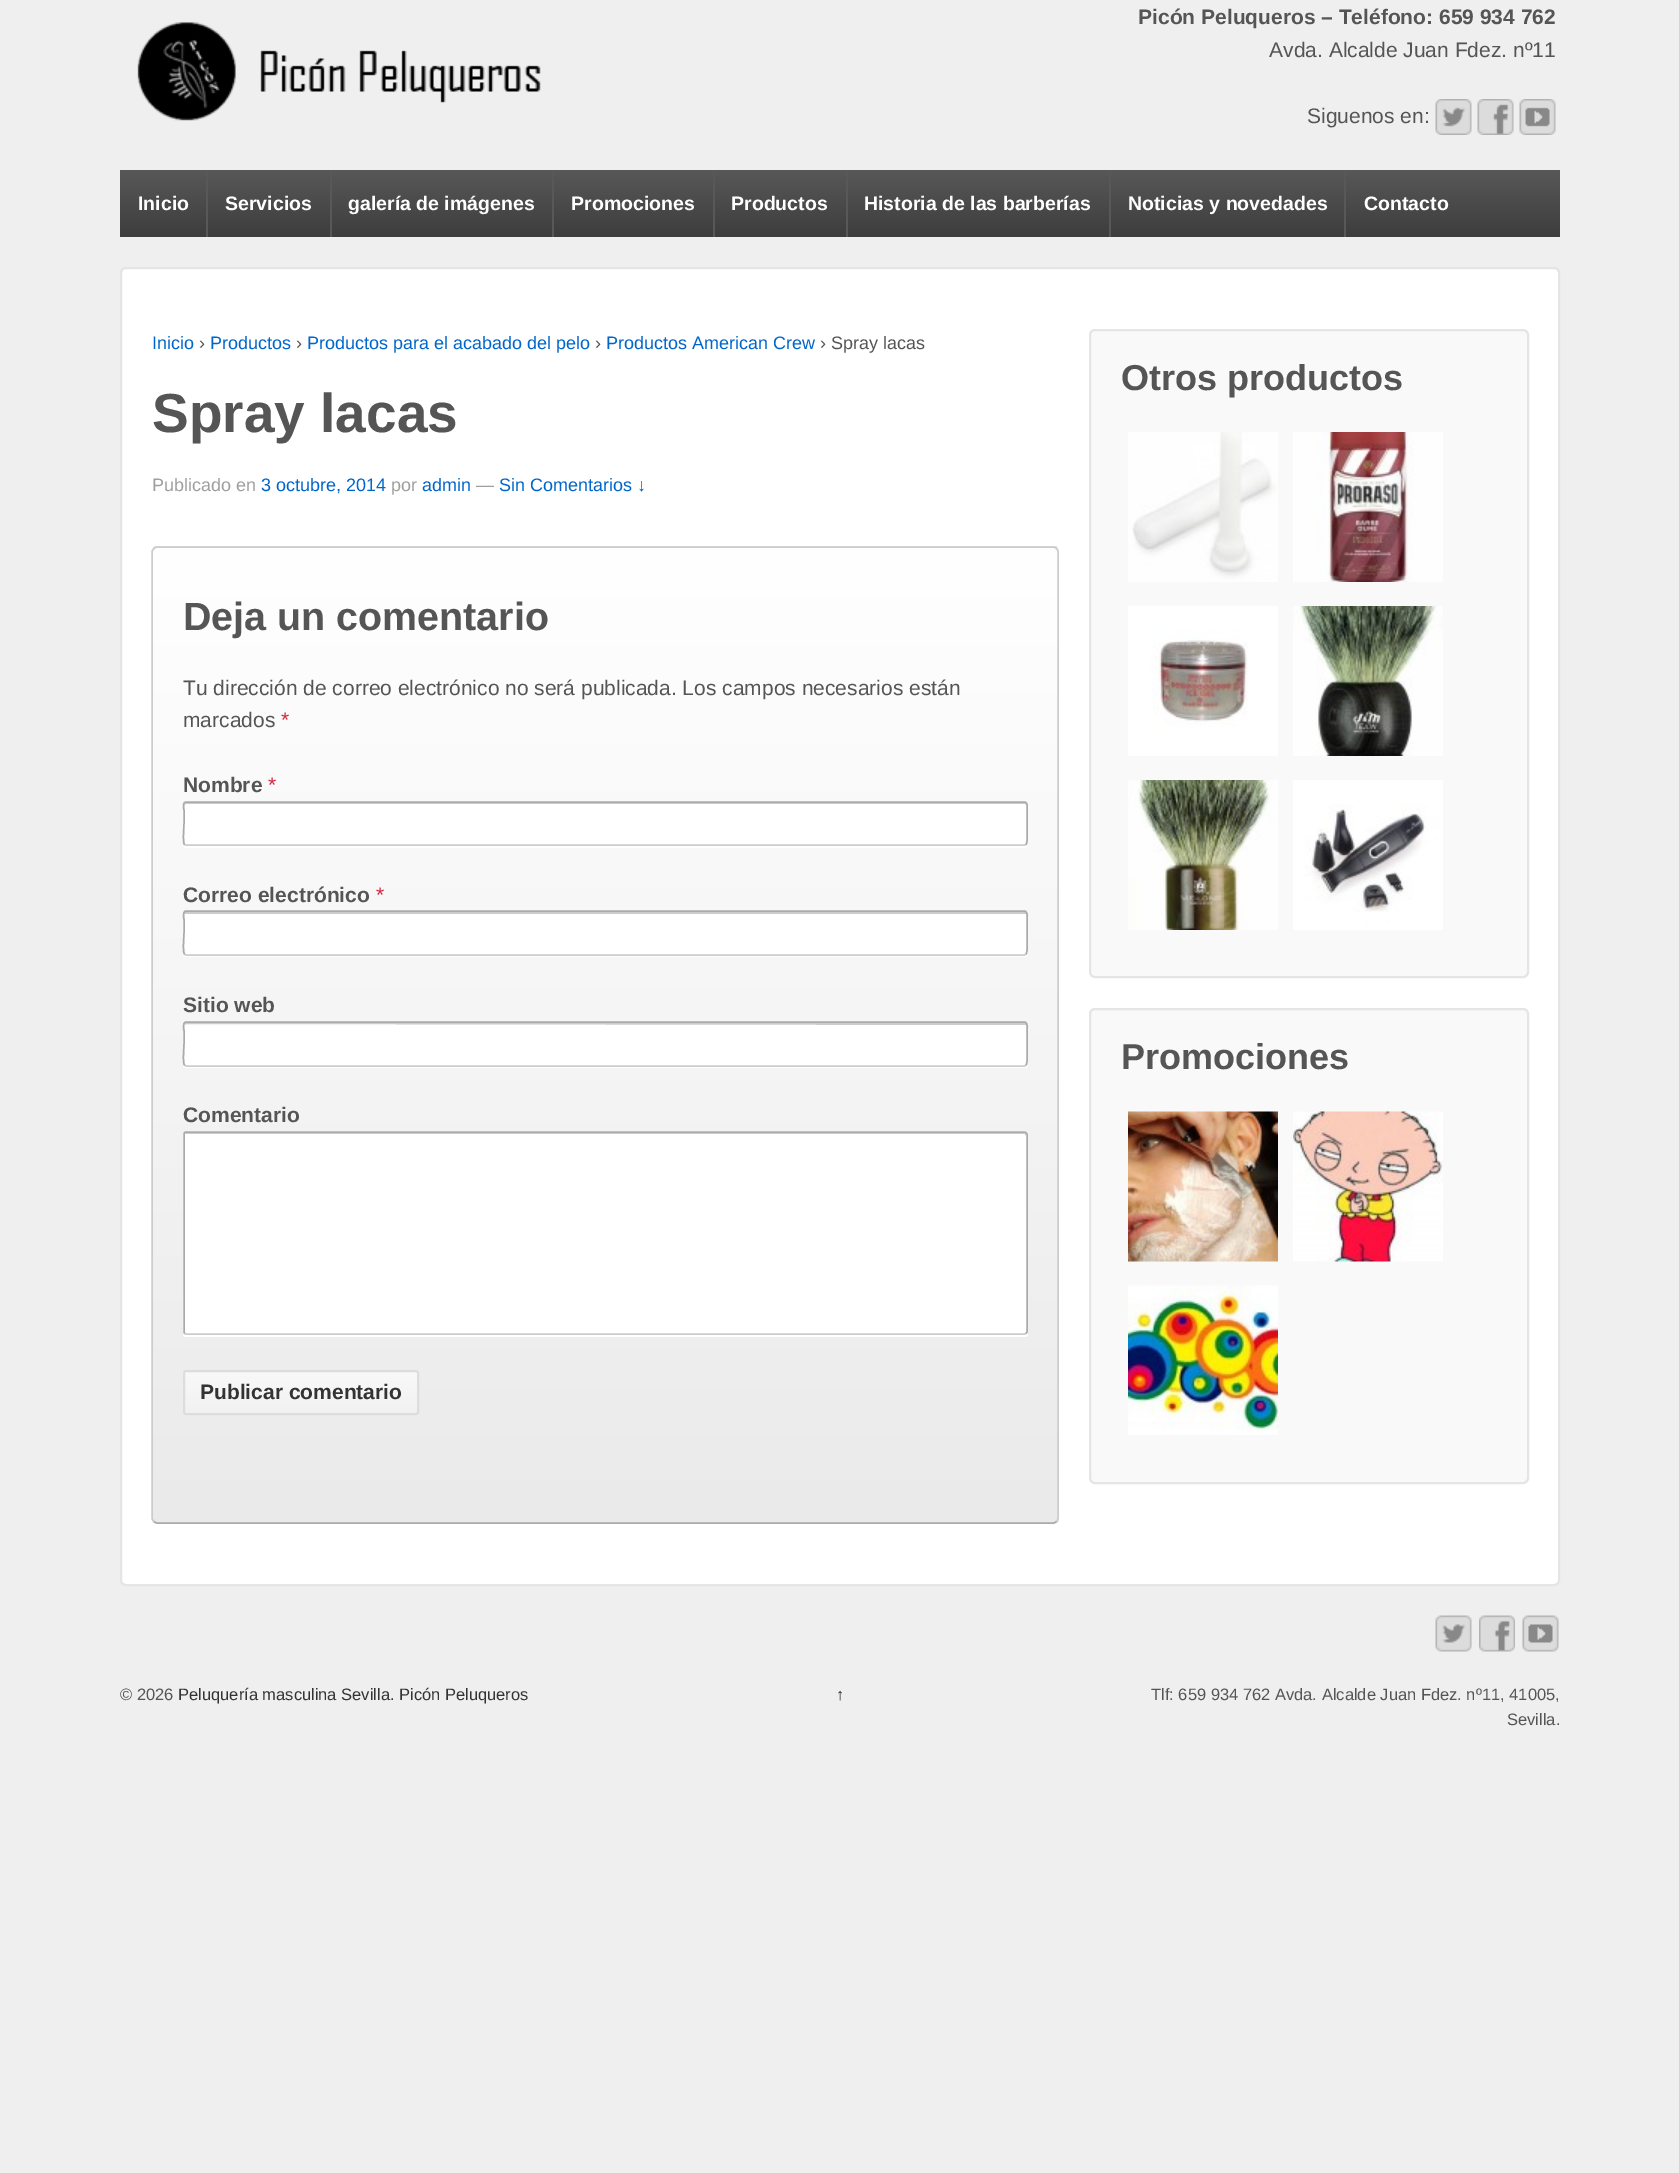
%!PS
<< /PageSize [1679 2173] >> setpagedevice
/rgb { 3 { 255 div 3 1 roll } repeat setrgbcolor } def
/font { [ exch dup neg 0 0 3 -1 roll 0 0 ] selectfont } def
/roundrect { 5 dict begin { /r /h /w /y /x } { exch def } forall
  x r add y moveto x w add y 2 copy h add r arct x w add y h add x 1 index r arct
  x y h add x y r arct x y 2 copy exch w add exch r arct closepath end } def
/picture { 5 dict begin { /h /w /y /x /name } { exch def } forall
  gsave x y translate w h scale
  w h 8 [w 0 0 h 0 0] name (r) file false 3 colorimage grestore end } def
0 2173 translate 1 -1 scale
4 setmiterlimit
239 239 239 rgb
0 0 1679 2173 rectfill
(img/1.rgb) 137 22 404 99 picture
(img/2.rgb) 1435 99 37 36 picture
(img/3.rgb) 1477 99 37 36 picture
(img/4.rgb) 1519 99 37 36 picture
gsave 120 170 moveto 1560 170 lineto 1560 237 lineto 120 237 lineto closepath clip newpath
<< /ShadingType 2 /ColorSpace /DeviceRGB /Coords [840 169 840 237] /Extend [true true] /Function << /FunctionType 2 /Domain [0 1] /C0 [0.345 0.345 0.345] /C1 [0.239 0.239 0.239] /N 1 >> >> shfill grestore
[
  [206 170 2 67 88 88 88]
  [330 170 2 67 88 88 88]
  [552 170 2 67 88 88 88]
  [713 170 2 67 88 88 88]
  [846 170 2 67 88 88 88]
  [1109 170 2 67 88 88 88]
  [1344 170 2 67 88 88 88]
] { aload pop rgb rectfill } forall
255 255 255 rgb
121 268 1438 1317 5 roundrect gsave fill grestore
229 229 229 rgb
2 setlinewidth
stroke
gsave
152 546 907 978 6 roundrect clip newpath
gsave 152 546 moveto 1059 546 lineto 1059 548 lineto 152 548 lineto closepath clip newpath
<< /ShadingType 2 /ColorSpace /DeviceRGB /Coords [605 -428 605 548] /Extend [true true] /Function << /FunctionType 2 /Domain [0 1] /C0 [1 1 1] /C1 [0.918 0.918 0.918] /N 1 >> >> shfill grestore
gsave 152 548 moveto 1059 548 lineto 1059 1523 lineto 152 1523 lineto closepath clip newpath
<< /ShadingType 2 /ColorSpace /DeviceRGB /Coords [605 547 605 1523] /Extend [true true] /Function << /FunctionType 2 /Domain [0 1] /C0 [1 1 1] /C1 [0.918 0.918 0.918] /N 1 >> >> shfill grestore
grestore
170 170 170 rgb
1.5 setlinewidth
1056.5 1521.5 moveto 1055.5 1522.5 1054.5 1523 1053 1523 curveto 157.5 1523 lineto 156 1523 155 1522.5 154 1521.5 curveto stroke
204 204 204 rgb
154 1521.5 moveto 153 1520.5 152 1519.5 152 1518 curveto 152 552 lineto 152 550.5 153 549.5 154 548.5 curveto 155 547.5 156 547 157.5 547 curveto 1053 547 lineto 1054.5 547 1055.5 547.5 1056.5 548.5 curveto 1057.5 549.5 1058 550.5 1058 552 curveto 1058 1518 lineto 1058 1519.5 1057.5 1520.5 1056.5 1521.5 curveto stroke
255 255 255 rgb
183 843 moveto 183 845 lineto 183 847 184 848 186 848 curveto 1025 848 lineto 1027 848 1028 847 1028 845 curveto 1028 806 lineto 1028 804 lineto 1028 843 lineto 1028 845 1026 846 1024 846 curveto 186 846 lineto 184 846 183 845 183 843 curveto closepath fill
183 801 845 45 3 roundrect fill
204 204 204 rgb
186 804 moveto 1025 804 lineto 1026 805 lineto 1026 804 1026 803 1024 803 curveto 186 803 lineto 185 804 lineto 185 805 lineto closepath fill
1026 844.5 moveto 1024.5 845 lineto 186 845 lineto 184.5 844.5 lineto stroke
170 170 170 rgb
184.5 844.5 moveto 182.5 843 184 826.5 184 823.5 curveto 184 810.5 lineto 184 809.5 182 802 186 802 curveto 1024.5 802 lineto 1028.5 802 1027 809.5 1027 810.5 curveto 1027 823.5 lineto 1027 826.5 1028 843 1026 844.5 curveto stroke
255 255 255 rgb
183 952 moveto 183 954 lineto 183 956 184 957 186 957 curveto 1025 957 lineto 1027 957 1028 956 1028 954 curveto 1028 915 lineto 1027 913 lineto 1028 952 lineto 1028 954 1026 956 1024 956 curveto 186 956 lineto 184 956 183 954 183 952 curveto closepath fill
183 911 845 45 3 roundrect fill
204 204 204 rgb
186 912 moveto 185 912 185 913 185 914 curveto 1026 914 lineto 1026 913 1026 912 1024 912 curveto closepath fill
1026 954 moveto 1024.5 955 lineto 186 955 lineto 184.5 954 lineto stroke
170 170 170 rgb
184.5 954 moveto 182.5 952.5 184 936 184 933 curveto 184 920 lineto 184 919 182 911.5 186 911 curveto 1024.5 911 lineto 1028.5 911.5 1027 919 1027 920 curveto 1027 933 lineto 1027 936 1028 952.5 1026 954 curveto stroke
255 255 255 rgb
183 1064 moveto 183 1065 lineto 183 1067 184 1068 186 1068 curveto 1025 1068 lineto 1027 1068 1028 1067 1028 1065 curveto 1028 1026 lineto 1027 1024 lineto 1028 1064 lineto 1028 1065 1026 1066 1024 1066 curveto 186 1066 lineto 184 1066 183 1065 183 1064 curveto closepath fill
183 1022 845 45 3 roundrect fill
204 204 204 rgb
186 1024 moveto 1026 1025 lineto 1026 1024 1026 1023 1024 1023 curveto 186 1023 lineto 185 1024 lineto 185 1025 lineto closepath fill
1026 1065 moveto 1024.5 1066 lineto 186 1066 lineto 184.5 1065 lineto stroke
170 170 170 rgb
184.5 1065 moveto 182.5 1063.5 184 1047 184 1044 curveto 184 1031 lineto 184 1030 182 1022.5 186 1022 curveto 1024.5 1022 lineto 1028.5 1022.5 1027 1030 1027 1031 curveto 1027 1044 lineto 1027 1047 1028 1063.5 1026 1065 curveto stroke
255 255 255 rgb
183 1332 moveto 183 1334 lineto 183 1336 184 1337 186 1337 curveto 1025 1337 lineto 1027 1337 1028 1336 1028 1334 curveto 1028 1136 lineto 1028 1134 lineto 1028 1332 lineto 1028 1334 1026 1335 1024 1335 curveto 186 1335 lineto 184 1335 183 1334 183 1332 curveto closepath fill
183 1131 845 204 3 roundrect fill
204 204 204 rgb
186 1134 moveto 1024 1134 lineto 1025 1134 1026 1135 1026 1136 curveto 1026 1134 lineto 1024 1133 lineto 186 1133 lineto 186 1133 185 1134 185 1134 curveto closepath fill
1026 1333.5 moveto 1024.5 1334 lineto 186 1334 lineto 184.5 1333.5 lineto stroke
170 170 170 rgb
184.5 1333.5 moveto 184 1332 lineto 184 1134 lineto 184 1133 185 1132 186 1132 curveto 1024.5 1132 lineto 1025.5 1132 1026.5 1133 1027 1134 curveto 1027 1332 lineto 1026 1333.5 lineto stroke
gsave
183 1370 236 45 3 roundrect clip newpath
gsave 183 1371 moveto 419 1371 lineto 419 1413 lineto 183 1413 lineto closepath clip newpath
<< /ShadingType 2 /ColorSpace /DeviceRGB /Coords [301 1371 301 1413] /Extend [true true] /Function << /FunctionType 2 /Domain [0 1] /C0 [0.976 0.976 0.976] /C1 [0.945 0.945 0.945] /N 1 >> >> shfill grestore
grestore
221 221 221 rgb
2 setlinewidth
184 1371 234 43 2 roundrect stroke
249 249 249 rgb
1090 330 438 647 5 roundrect gsave fill grestore
229 229 229 rgb
stroke
(img/5.rgb) 1128 432 150 150 picture
(img/6.rgb) 1293 432 150 150 picture
(img/7.rgb) 1128 606 150 150 picture
(img/8.rgb) 1293 606 150 150 picture
(img/9.rgb) 1128 780 150 150 picture
(img/10.rgb) 1293 780 150 150 picture
249 249 249 rgb
1090 1009 438 474 5 roundrect gsave fill grestore
229 229 229 rgb
stroke
(img/11.rgb) 1128 1111 150 151 picture
(img/12.rgb) 1293 1111 150 151 picture
(img/13.rgb) 1128 1285 150 150 picture
(img/14.rgb) 1435 1615 37 37 picture
(img/15.rgb) 1479 1615 36 37 picture
(img/16.rgb) 1522 1615 37 37 picture
/LiberationSans-Bold 21 font
85 85 85 rgb
1138 24 moveto (Picón Peluqueros – Teléfono: 659 934 762) show
/LiberationSans-Regular 21 font
1269 57 moveto (Avda. Alcalde Juan Fdez. nº11) show
1307 123 moveto (Siguenos en:) show
/LiberationSans-Bold 19.5 font
255 255 255 rgb
[
  [(Inicio) 138 210]
  [(Servicios) 225 210]
  [(galería de imágenes) 348 210]
  [(Promociones) 571 210]
  [(Productos) 731 210]
  [(Historia de las barberías) 864 210]
  [(Noticias y novedades) 1128 210]
  [(Contacto) 1364 210]
] { aload pop moveto show } forall
/LiberationSans-Regular 18 font
0 102 204 rgb
152 349 moveto (Inicio) show
85 85 85 rgb
199 349 moveto (›) show
0 102 204 rgb
210 349 moveto (Productos) show
85 85 85 rgb
296 349 moveto (›) show
0 102 204 rgb
307 349 moveto (Productos para el acabado del pelo) show
85 85 85 rgb
595 349 moveto (›) show
0 102 204 rgb
606 349 moveto (Productos American Crew) show
85 85 85 rgb
820 349 moveto (› Spray lacas) show
/LiberationSans-Bold 55 font
152 432 moveto (Spray lacas) show
/LiberationSans-Regular 18 font
159 159 159 rgb
152 491 moveto (Publicado en) show
0 102 204 rgb
261 491 moveto (3 octubre, 2014) show
159 159 159 rgb
391 491 moveto (por) show
0 102 204 rgb
422 491 moveto (admin) show
159 159 159 rgb
476 491 moveto (—) show
0 102 204 rgb
499 491 moveto (Sin Comentarios ↓) show
/LiberationSans-Bold 39.4 font
85 85 85 rgb
183 630 moveto (Deja un comentario) show
/LiberationSans-Regular 21 font
183 695 moveto (Tu dirección de correo electrónico no será publicada. Los campos necesarios están) show
183 727 moveto (marcados) show
213 36 63 rgb
281 727 moveto (*) show
/LiberationSans-Bold 21 font
85 85 85 rgb
183 792 moveto (Nombre) show
/LiberationSans-Regular 21 font
213 36 63 rgb
268 792 moveto (*) show
/LiberationSans-Bold 21 font
85 85 85 rgb
183 902 moveto (Correo electrónico) show
/LiberationSans-Regular 21 font
213 36 63 rgb
376 902 moveto (*) show
/LiberationSans-Bold 21 font
85 85 85 rgb
183 1012 moveto (Sitio web) show
183 1122 moveto (Comentario) show
51 51 51 rgb
200 1399 moveto (Publicar comentario) show
/LiberationSans-Bold 36 font
85 85 85 rgb
1121 390 moveto (Otros productos) show
1121 1069 moveto (Promociones) show
/LiberationSans-Regular 16.5 font
120 1700 moveto (© 2026) show
51 51 51 rgb
178 1700 moveto (Peluquería masculina Sevilla. Picón Peluqueros) show
836 1700 moveto (↑) show
85 85 85 rgb
1151 1700 moveto (Tlf: 659 934 762 Avda. Alcalde Juan Fdez. nº11, 41005,) show
1507 1725 moveto (Sevilla.) show
showpage
